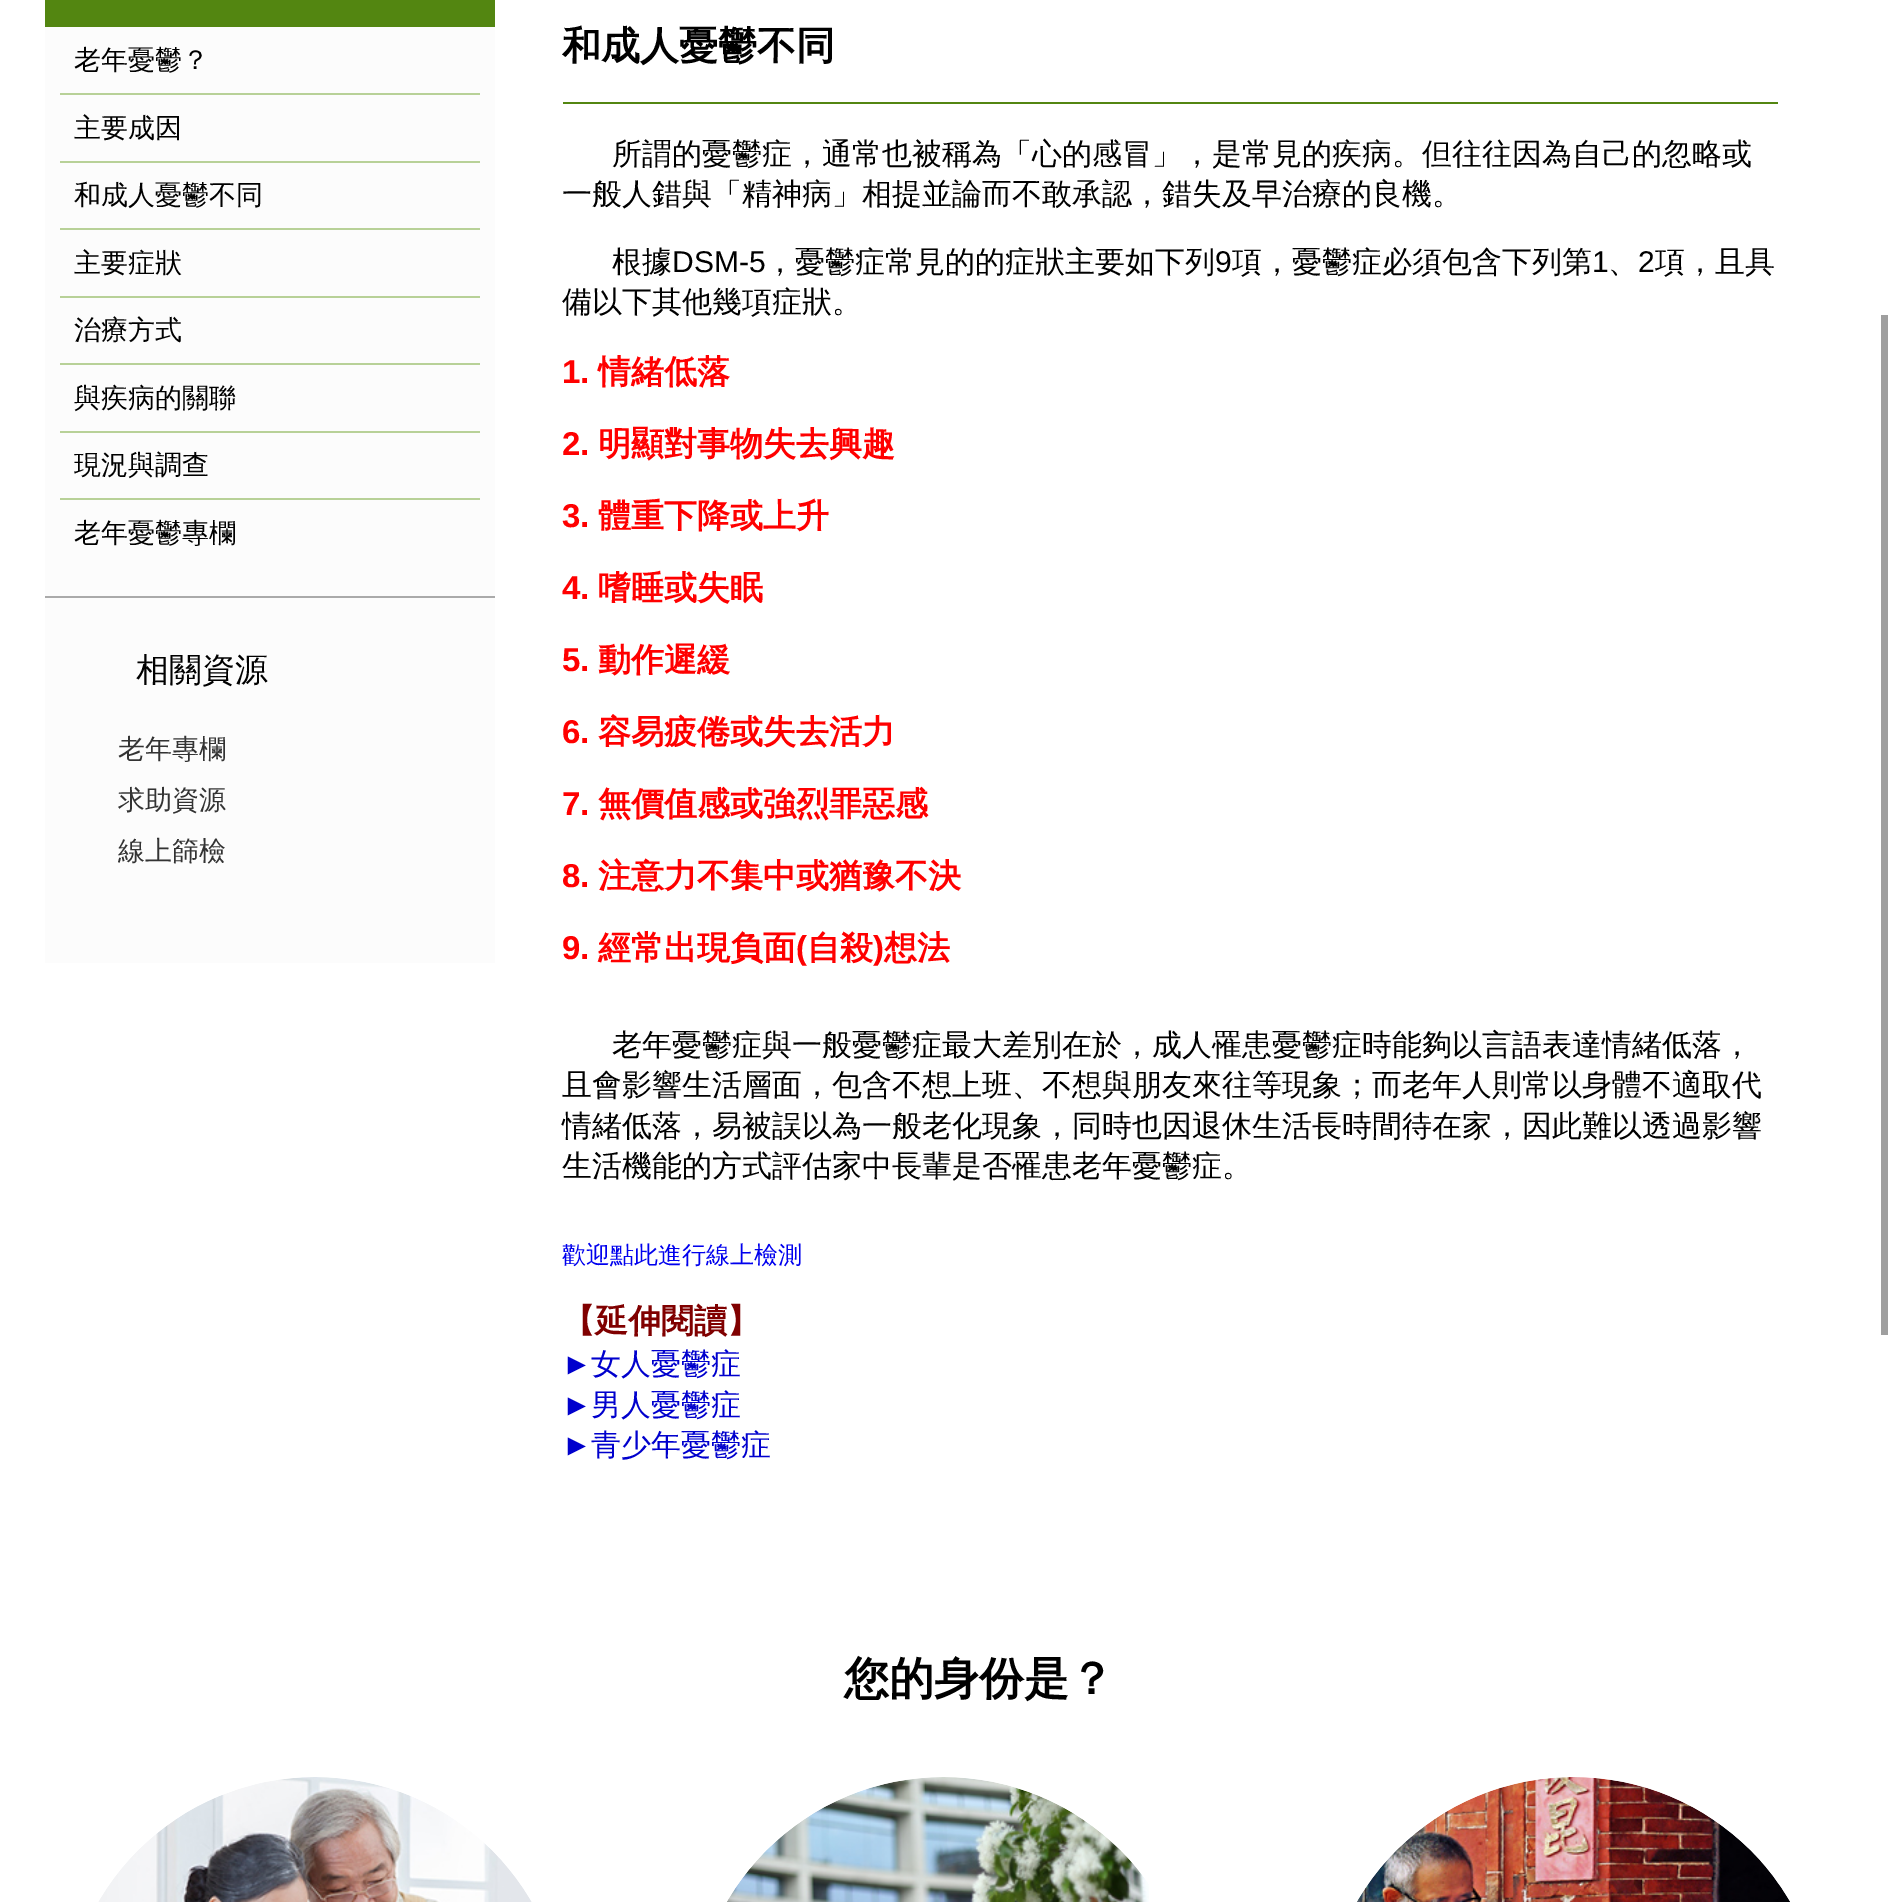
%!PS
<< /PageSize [1888 1902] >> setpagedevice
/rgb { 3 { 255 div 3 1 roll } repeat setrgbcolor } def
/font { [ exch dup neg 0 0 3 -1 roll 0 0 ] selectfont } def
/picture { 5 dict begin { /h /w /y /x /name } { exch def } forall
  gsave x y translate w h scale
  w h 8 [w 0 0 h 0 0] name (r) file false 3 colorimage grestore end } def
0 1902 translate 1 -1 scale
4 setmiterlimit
255 255 255 rgb
0 0 1888 1902 rectfill
[
  [45 27 450 936 252 252 252]
  [45 596 450 2 170 170 170]
  [45 0 450 27 83 134 17]
  [60 93 420 2 184 209 152]
  [60 161 420 2 184 209 152]
  [60 228 420 2 184 209 152]
  [60 296 420 2 184 209 152]
  [60 363 420 2 184 209 152]
  [60 431 420 2 184 209 152]
  [60 498 420 2 184 209 152]
  [563 102 1215 2 83 134 17]
] { aload pop rgb rectfill } forall
(img/1.rgb) 98 1777 434 125 picture
(img/2.rgb) 727 1777 422 125 picture
(img/3.rgb) 1357 1777 433 125 picture
159 159 159 rgb
1881 315 7 1020 rectfill
/WenQuanYiZenHei-Medium 27 font
0 0 0 rgb
[
  [(老年憂鬱？) 74 69]
  [(主要成因) 74 137]
  [(和成人憂鬱不同) 74 204]
  [(主要症狀) 74 272]
  [(治療方式) 74 339]
  [(與疾病的關聯) 74 407]
  [(現況與調查) 74 474]
  [(老年憂鬱專欄) 74 542]
] { aload pop moveto show } forall
/WenQuanYiZenHei-Medium 33 font
136 681 moveto (相關資源) show
/WenQuanYiZenHei-Medium 27 font
51 51 51 rgb
[
  [(老年專欄) 118 758]
  [(求助資源) 118 809]
  [(線上篩檢) 118 860]
] { aload pop moveto show } forall
/WenQuanYiZenHei-Bold 39 font
0 0 0 rgb
562 59 moveto (和成人憂鬱不同) show
/WenQuanYiZenHei-Medium 30 font
[
  [(所謂的憂鬱症，通常也被稱為「心的感冒」，是常見的疾病。但往往因為自己的忽略或) 612 164]
  [(一般人錯與「精神病」相提並論而不敢承認，錯失及早治療的良機。) 562 204]
  [(根據) 612 272]
] { aload pop moveto show } forall
/LiberationSans-Regular 30 font
672 272 moveto (DSM-5) show
/WenQuanYiZenHei-Medium 30 font
765 272 moveto (，憂鬱症常見的的症狀主要如下列) show
/LiberationSans-Regular 30 font
1215 272 moveto (9) show
/WenQuanYiZenHei-Medium 30 font
1232 272 moveto (項，憂鬱症必須包含下列第) show
/LiberationSans-Regular 30 font
1592 272 moveto (1) show
/WenQuanYiZenHei-Medium 30 font
1608 272 moveto (、) show
/LiberationSans-Regular 30 font
1638 272 moveto (2) show
/WenQuanYiZenHei-Medium 30 font
1655 272 moveto (項，且具) show
562 312 moveto (備以下其他幾項症狀。) show
/LiberationSans-Bold 33 font
255 0 0 rgb
562 383 moveto (1.) show
/WenQuanYiZenHei-Bold 33 font
598 383 moveto (情緒低落) show
/LiberationSans-Bold 33 font
562 455 moveto (2.) show
/WenQuanYiZenHei-Bold 33 font
598 455 moveto (明顯對事物失去興趣) show
/LiberationSans-Bold 33 font
562 527 moveto (3.) show
/WenQuanYiZenHei-Bold 33 font
598 527 moveto (體重下降或上升) show
/LiberationSans-Bold 33 font
562 599 moveto (4.) show
/WenQuanYiZenHei-Bold 33 font
598 599 moveto (嗜睡或失眠) show
/LiberationSans-Bold 33 font
562 671 moveto (5.) show
/WenQuanYiZenHei-Bold 33 font
598 671 moveto (動作遲緩) show
/LiberationSans-Bold 33 font
562 743 moveto (6.) show
/WenQuanYiZenHei-Bold 33 font
598 743 moveto (容易疲倦或失去活力) show
/LiberationSans-Bold 33 font
562 815 moveto (7.) show
/WenQuanYiZenHei-Bold 33 font
598 815 moveto (無價值感或強烈罪惡感) show
/LiberationSans-Bold 33 font
562 887 moveto (8.) show
/WenQuanYiZenHei-Bold 33 font
598 887 moveto (注意力不集中或猶豫不決) show
/LiberationSans-Bold 33 font
562 959 moveto (9.) show
/WenQuanYiZenHei-Bold 33 font
598 959 moveto (經常出現負面) show
/LiberationSans-Bold 33 font
796 959 moveto (\() show
/WenQuanYiZenHei-Bold 33 font
807 959 moveto (自殺) show
/LiberationSans-Bold 33 font
873 959 moveto (\)) show
/WenQuanYiZenHei-Bold 33 font
884 959 moveto (想法) show
/WenQuanYiZenHei-Medium 30 font
0 0 0 rgb
[
  [(老年憂鬱症與一般憂鬱症最大差別在於，成人罹患憂鬱症時能夠以言語表達情緒低落，) 612 1055]
  [(且會影響生活層面，包含不想上班、不想與朋友來往等現象；而老年人則常以身體不適取代) 562 1095]
  [(情緒低落，易被誤以為一般老化現象，同時也因退休生活長時間待在家，因此難以透過影響) 562 1136]
  [(生活機能的方式評估家中長輩是否罹患老年憂鬱症。) 562 1176]
] { aload pop moveto show } forall
/WenQuanYiZenHei-Medium 24 font
0 0 238 rgb
562 1263 moveto (歡迎點此進行線上檢測) show
/WenQuanYiZenHei-Bold 33 font
128 0 0 rgb
562 1332 moveto (【延伸閱讀】) show
/LiberationSans-Regular 30 font
0 0 205 rgb
562 1374 moveto (►) show
/WenQuanYiZenHei-Medium 30 font
591 1374 moveto (女人憂鬱症) show
/LiberationSans-Regular 30 font
562 1415 moveto (►) show
/WenQuanYiZenHei-Medium 30 font
591 1415 moveto (男人憂鬱症) show
/LiberationSans-Regular 30 font
562 1455 moveto (►) show
/WenQuanYiZenHei-Medium 30 font
591 1455 moveto (青少年憂鬱症) show
/WenQuanYiZenHei-Bold 45 font
0 0 0 rgb
844 1694 moveto (您的身份是？) show
showpage
